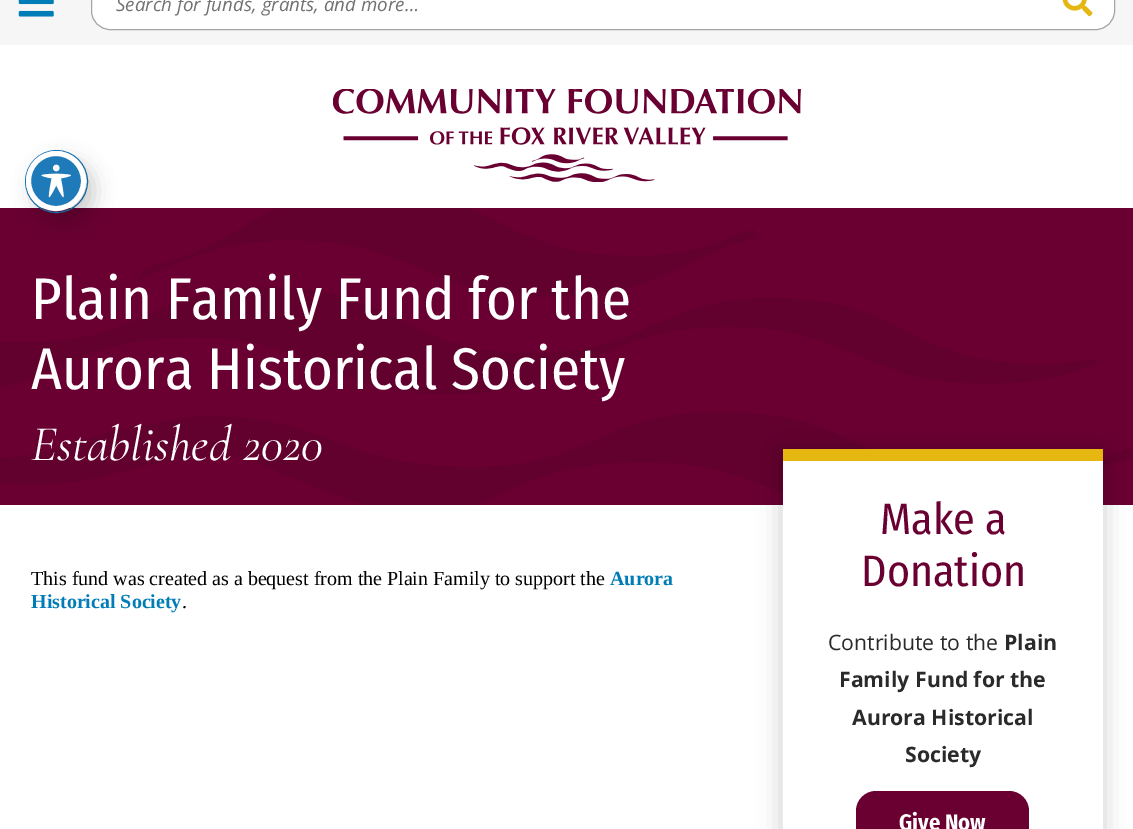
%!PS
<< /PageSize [1133 829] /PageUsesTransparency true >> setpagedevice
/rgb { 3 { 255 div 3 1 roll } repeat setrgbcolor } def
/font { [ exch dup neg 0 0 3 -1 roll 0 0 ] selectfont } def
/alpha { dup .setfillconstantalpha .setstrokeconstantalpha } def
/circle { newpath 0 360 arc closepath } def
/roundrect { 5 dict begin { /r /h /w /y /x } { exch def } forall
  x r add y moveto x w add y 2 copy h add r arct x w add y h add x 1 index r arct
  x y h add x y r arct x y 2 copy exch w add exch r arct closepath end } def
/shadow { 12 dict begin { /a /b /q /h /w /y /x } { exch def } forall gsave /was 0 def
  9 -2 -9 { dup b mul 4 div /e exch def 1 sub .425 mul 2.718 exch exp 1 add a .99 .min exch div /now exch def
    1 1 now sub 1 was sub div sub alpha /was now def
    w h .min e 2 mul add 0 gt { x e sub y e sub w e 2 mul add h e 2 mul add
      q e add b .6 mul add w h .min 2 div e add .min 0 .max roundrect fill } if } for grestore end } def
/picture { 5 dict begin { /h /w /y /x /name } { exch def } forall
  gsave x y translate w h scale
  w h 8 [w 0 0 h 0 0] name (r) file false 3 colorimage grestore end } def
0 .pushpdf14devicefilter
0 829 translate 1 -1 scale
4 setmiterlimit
246 246 246 rgb
0 0 1133 829 rectfill
(img/1.rgb) 18 0 36 17 picture
255 255 255 rgb
91.5 -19.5 1023 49 18.5 roundrect gsave fill grestore
166 166 166 rgb
stroke
(img/2.rgb) 1062 0 31 17 picture
255 255 255 rgb
0 45 1133 163 rectfill
(img/3.rgb) 333 89 468 93 picture
106 0 50 rgb
0 208 1133 297 rectfill
(img/4.rgb) 0 208 1133 297 picture
255 255 255 rgb
0 505 1133 324 rectfill
0 0 0 rgb
781 451 323 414 0 12 0.18 shadow
255 255 255 rgb
783 461 320 368 rectfill
230 183 17 rgb
783 449 320 12 rectfill
106 0 50 rgb
856 791 173 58 20 roundrect fill
30 122 185 rgb
56.5 181.5 31 circle stroke
0 0 0 rgb
34 161 60 60 30 10 0.2 shadow
30 122 185 rgb
56 181 27.5 circle gsave fill grestore
255 255 255 rgb
5 setlinewidth
stroke
(img/5.rgb) 41 164 30 34 picture
/OpenSans-Italic 18.75 font
113 113 113 rgb
116 11 moveto (Search for funds, grants, and more…) show
/FiraSansCondensed-Regular 58.75 font
255 255 255 rgb
31 319 moveto (Plain Family Fund for the) show
31 389 moveto (Aurora Historical Society) show
/CormorantGaramond-LightItalic 50 font
31 460 moveto (Established 2020) show
/LiberationSerif-Regular 20 font
0 0 0 rgb
31 585 moveto (This fund was created as a bequest from the Plain Family to support the) show
/LiberationSerif-Bold 20 font
0 125 182 rgb
610 585 moveto (Aurora) show
31 608 moveto (Historical Society) show
/LiberationSerif-Regular 20 font
0 0 0 rgb
182 608 moveto (.) show
/FiraSansCondensed-Regular 44 font
106 0 50 rgb
880 534 moveto (Make a) show
861 586 moveto (Donation) show
/OpenSans-Regular 21.25 font
42 42 42 rgb
828 650 moveto (Contribute to the) show
/OpenSans-Bold 21.25 font
[
  [(Plain) 1004 650]
  [(Family Fund for the) 839 687]
  [(Aurora Historical) 852 725]
  [(Society) 905 762]
] { aload pop moveto show } forall
/FiraSansCondensed-Bold 22.5 font
255 255 255 rgb
899 830 moveto (Give Now) show
.poppdf14devicefilter showpage
